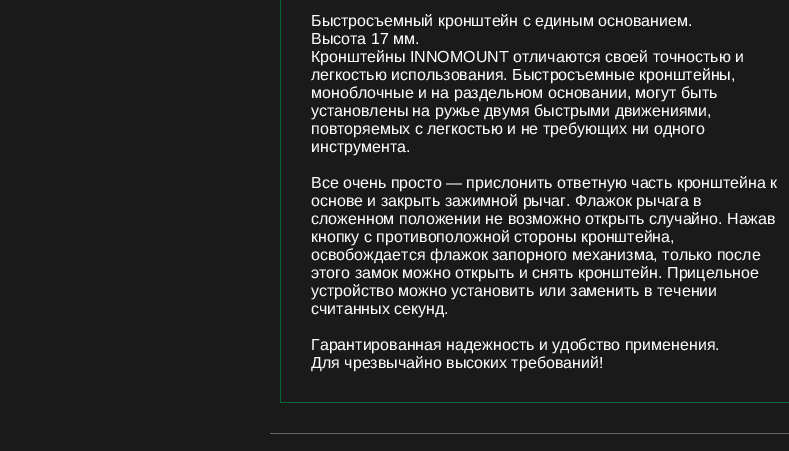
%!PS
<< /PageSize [789 451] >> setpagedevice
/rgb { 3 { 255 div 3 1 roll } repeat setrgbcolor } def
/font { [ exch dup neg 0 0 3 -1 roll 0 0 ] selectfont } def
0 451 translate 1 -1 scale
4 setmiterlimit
26 26 26 rgb
0 0 789 451 rectfill
[
  [270 433 519 1 103 103 103]
  [280 402 509 1 0 104 55]
  [280 0 1 403 0 104 55]
] { aload pop rgb rectfill } forall
/LiberationSans-Regular 16 font
255 255 255 rgb
[
  [(Быстросъемный кронштейн с единым основанием.) 311 26]
  [(Высота 17 мм.) 311 44]
  [(Кронштейны INNOMOUNT отличаются своей точностью и) 311 62]
  [(легкостью использования. Быстросъемные кронштейны,) 311 80]
  [(моноблочные и на раздельном основании, могут быть) 311 98]
  [(установлены на ружье двумя быстрыми движениями,) 311 116]
  [(повторяемых с легкостью и не требующих ни одного) 311 134]
  [(инструмента.) 311 152]
  [(Все очень просто — прислонить ответную часть кронштейна к) 311 188]
  [(основе и закрыть зажимной рычаг. Флажок рычага в) 311 206]
  [(сложенном положении не возможно открыть случайно. Нажав) 311 224]
  [(кнопку с противоположной стороны кронштейна,) 311 242]
  [(освобождается флажок запорного механизма, только после) 311 260]
  [(этого замок можно открыть и снять кронштейн. Прицельное) 311 278]
  [(устройство можно установить или заменить в течении) 311 296]
  [(считанных секунд.) 311 314]
  [(Гарантированная надежность и удобство применения.) 311 350]
  [(Для чрезвычайно высоких требований!) 311 368]
] { aload pop moveto show } forall
showpage
